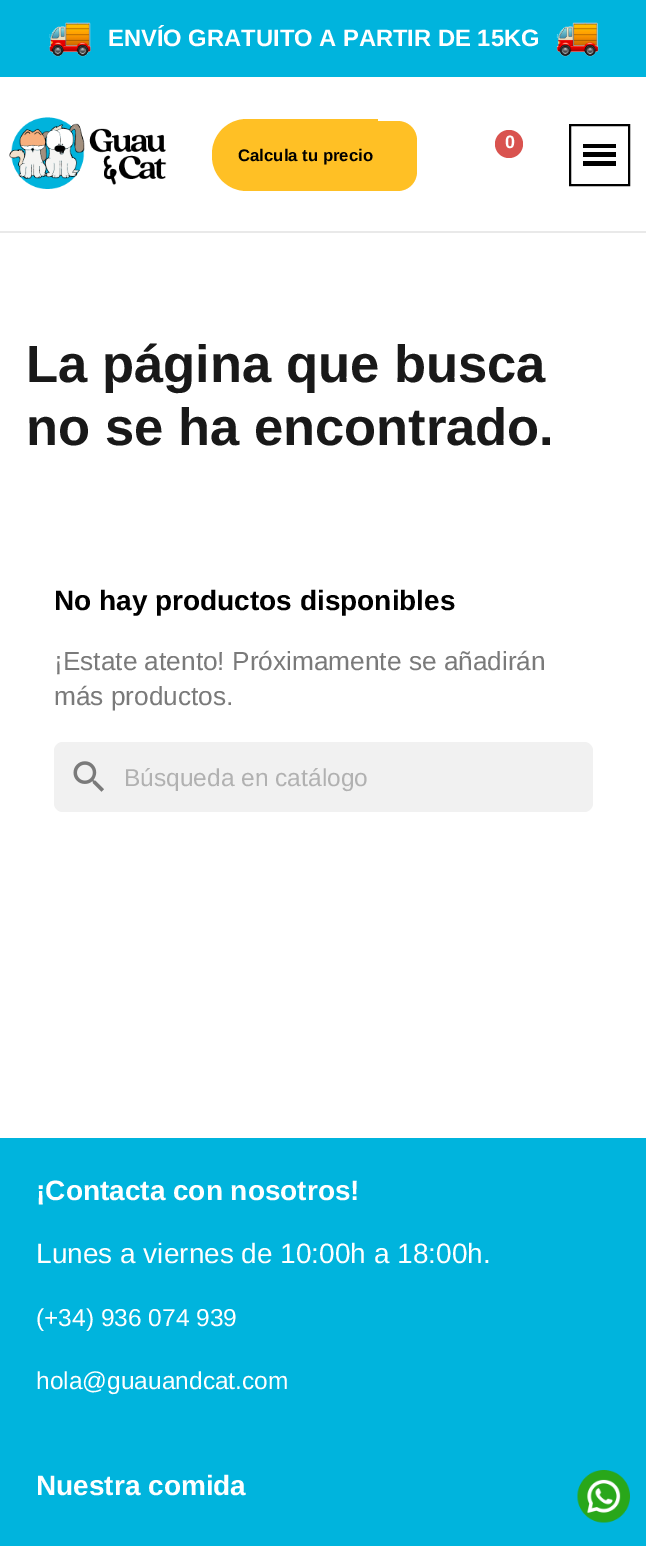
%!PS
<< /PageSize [646 1546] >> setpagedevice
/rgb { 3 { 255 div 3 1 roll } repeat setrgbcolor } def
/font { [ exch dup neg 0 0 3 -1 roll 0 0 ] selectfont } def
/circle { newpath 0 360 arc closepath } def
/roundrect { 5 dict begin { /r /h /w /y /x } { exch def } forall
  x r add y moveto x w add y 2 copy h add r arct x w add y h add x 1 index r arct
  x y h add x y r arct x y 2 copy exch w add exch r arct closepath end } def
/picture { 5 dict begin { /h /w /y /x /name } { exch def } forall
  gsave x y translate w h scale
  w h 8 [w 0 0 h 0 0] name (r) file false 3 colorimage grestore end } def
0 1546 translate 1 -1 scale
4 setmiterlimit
255 255 255 rgb
0 0 646 1546 rectfill
0 180 221 rgb
0 0 646 77 rectfill
(img/1.rgb) 49 22 42 35 picture
(img/2.rgb) 556 22 43 35 picture
233 233 233 rgb
0 231 646 2 rectfill
(img/3.rgb) 9 117 158 72 picture
217 83 79 rgb
509 144 14 circle fill
0 0 0 rgb
2 setlinewidth
570 125 59 60 rectstroke
[
  [583 152 33 5 0 0 0]
  [583 144 33 4 0 0 0]
  [583 161 33 5 0 0 0]
] { aload pop rgb rectfill } forall
255 192 37 rgb
247 119 moveto 378 119 lineto 378 191 lineto 247 191 lineto 227.5 191 212 175.5 212 156 curveto 212 154 lineto 212 134.5 227.5 119 247 119 curveto closepath fill
378 121 moveto 397.5 121 lineto 408.5 121 417 129.5 417 140.5 curveto 417 171.5 lineto 417 182.5 408.5 191 397.5 191 curveto 378 191 lineto closepath fill
241 241 241 rgb
54 742 539 70 9 roundrect fill
(img/4.rgb) 73 761 31 31 picture
0 180 221 rgb
0 1138 646 408 rectfill
(img/5.rgb) 577 1470 53 53 picture
/LiberationSans-Bold 23.75 font
255 255 255 rgb
108 46 moveto (ENVÍO GRATUITO A PARTIR DE 15KG) show
/LiberationSans-Bold 18 font
505 148 moveto (0) show
/LiberationSans-Bold 16.75 font
0 0 0 rgb
238 161 moveto (Calcula tu precio) show
/LiberationSans-Bold 52.5 font
25 25 25 rgb
26 382 moveto (La página que busca) show
26 445 moveto (no se ha encontrado.) show
/LiberationSans-Bold 28 font
0 0 0 rgb
54 610 moveto (No hay productos disponibles) show
/LiberationSans-Regular 26.25 font
122 122 122 rgb
54 670 moveto (¡Estate atento! Próximamente se añadirán) show
54 705 moveto (más productos.) show
/LiberationSans-Regular 24.5 font
177 177 177 rgb
124 786 moveto (Búsqueda en catálogo) show
/LiberationSans-Bold 28 font
255 255 255 rgb
36 1200 moveto (¡Contacta con nosotros!) show
/LiberationSans-Regular 28 font
36 1263 moveto (Lunes a viernes de 10:00h a 18:00h.) show
/LiberationSans-Regular 24.5 font
36 1326 moveto (\(+34\) 936 074 939) show
36 1389 moveto (hola@guauandcat.com) show
/LiberationSans-Bold 28 font
36 1495 moveto (Nuestra comida) show
showpage
